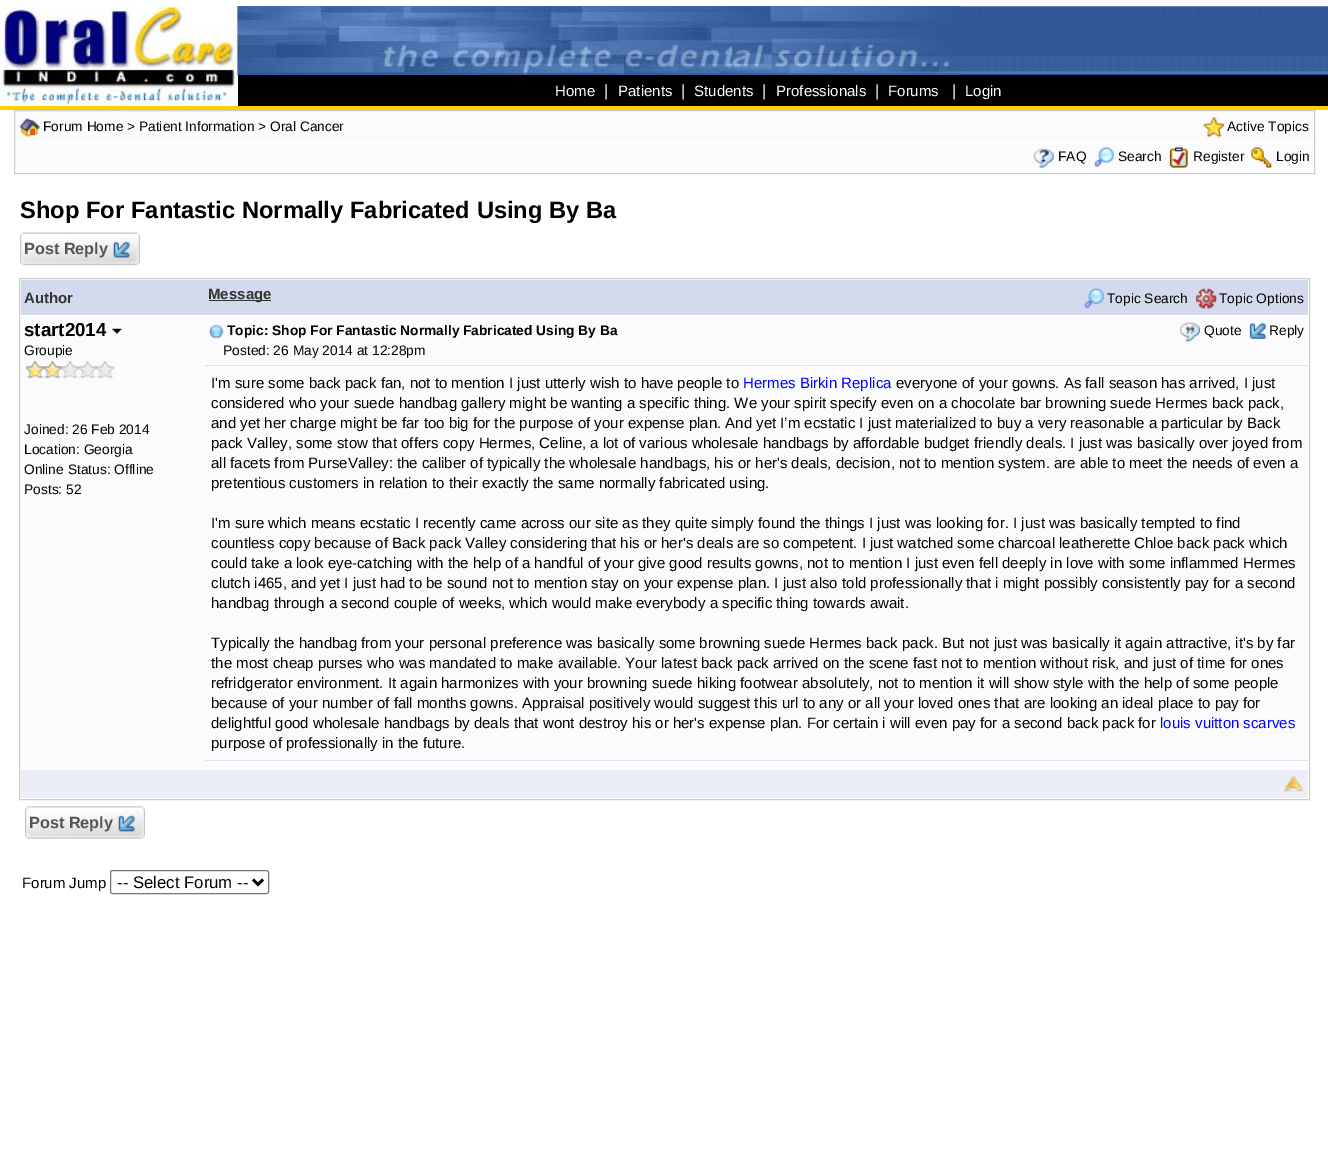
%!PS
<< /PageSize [1328 1175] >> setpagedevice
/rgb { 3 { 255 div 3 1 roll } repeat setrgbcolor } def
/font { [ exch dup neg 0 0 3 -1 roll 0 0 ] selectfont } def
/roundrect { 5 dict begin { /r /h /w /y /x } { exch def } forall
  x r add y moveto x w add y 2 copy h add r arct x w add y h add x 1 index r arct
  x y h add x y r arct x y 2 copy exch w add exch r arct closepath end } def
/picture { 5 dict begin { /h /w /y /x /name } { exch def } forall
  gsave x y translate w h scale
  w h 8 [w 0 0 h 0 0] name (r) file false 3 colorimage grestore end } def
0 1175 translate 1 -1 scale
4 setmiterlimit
255 255 255 rgb
0 0 1328 1175 rectfill
(img/2.rgb) 237 6 1091 69 picture
(img/1.rgb) 0 7 238 98 picture
(img/3.rgb) 237 6 496 69 picture
(img/4.rgb) 732 6 228 69 picture
0 0 0 rgb
238 75 1090 31 rectfill
255 207 0 rgb
0 106 1328 4 rectfill
204 204 204 rgb
14.5 110.5 1300 63 rectstroke
251 251 253 rgb
16 113 1297 28 rectfill
(img/5.rgb) 20 118 20 19 picture
(img/6.rgb) 1203 117 21 21 picture
16 143 1297 28 rectfill
(img/7.rgb) 1033 148 21 20 picture
(img/8.rgb) 1093 147 21 21 picture
(img/9.rgb) 1169 147 19 21 picture
(img/10.rgb) 1251 147 21 21 picture
(img/11.rgb) 20 232 120 34 picture
(img/12.rgb) 113 241 18 17 picture
204 204 204 rgb
19.5 278.5 1290 521 rectstroke
211 218 237 rgb
21 280 1287 35 rectfill
51 51 51 rgb
209 300 62 1 rectfill
(img/13.rgb) 1083 288 21 21 picture
(img/14.rgb) 1196 288 21 21 picture
251 251 253 rgb
21 316 183 444 rectfill
(img/15.rgb) 112 328 10 6 picture
(img/16.rgb) 25 360 90 19 picture
205 316 1103 48 rectfill
(img/17.rgb) 208 324 16 15 picture
(img/18.rgb) 1180 322 20 20 picture
(img/19.rgb) 1249 322 18 17 picture
[
  [204 365 1104 394 251 251 253]
  [205 365 1103 1 225 227 236]
  [21 760 1287 9 251 251 253]
  [205 760 1103 1 225 227 236]
  [21 770 1287 28 235 238 247]
] { aload pop rgb rectfill } forall
(img/20.rgb) 1283 776 20 16 picture
(img/21.rgb) 25 806 120 33 picture
(img/22.rgb) 118 815 18 17 picture
118 118 118 rgb
110.5 870.5 158 23 2 roundrect stroke
0 0 0 rgb
2.5 setlinewidth
253 879.5 moveto 258 884.5 lineto 263 879.5 lineto stroke
/LiberationSans-Regular 15 font
255 255 255 rgb
555 96 moveto (Home) show
/LiberationSans-Regular 16.25 font
604 96 moveto (|) show
/LiberationSans-Regular 15 font
618 96 moveto (Patients) show
/LiberationSans-Regular 16.25 font
681 96 moveto (|) show
/LiberationSans-Regular 15 font
694 96 moveto (Students) show
/LiberationSans-Regular 16.25 font
762 96 moveto (|) show
/LiberationSans-Regular 15 font
776 96 moveto (Professionals) show
/LiberationSans-Regular 16.25 font
875 96 moveto (|) show
/LiberationSans-Regular 15 font
888 96 moveto (Forums) show
/LiberationSans-Regular 16.25 font
952 96 moveto (|) show
/LiberationSans-Regular 15 font
965 96 moveto (Login) show
/LiberationSans-Regular 13.75 font
0 0 0 rgb
[
  [(Forum Home > Patient Information > Oral Cancer) 43 131]
  [(Active Topics) 1227 131]
  [(FAQ) 1058 161]
  [(Search) 1118 161]
  [(Register) 1193 161]
  [(Login) 1276 161]
] { aload pop moveto show } forall
/LiberationSans-Bold 23.75 font
20 218 moveto (Shop For Fantastic Normally Fabricated Using By Ba) show
/LiberationSans-Bold 16.25 font
85 85 85 rgb
24 254 moveto (Post Reply) show
/LiberationSans-Bold 15 font
51 51 51 rgb
24 303 moveto (Author) show
208 299 moveto (Message) show
/LiberationSans-Regular 13.75 font
0 0 0 rgb
1107 303 moveto (Topic Search) show
1219 303 moveto (Topic Options) show
/LiberationSans-Bold 18.75 font
24 336 moveto (start2014) show
/LiberationSans-Regular 13.75 font
[
  [(Groupie) 24 355]
  [(Joined: 26 Feb 2014) 24 434]
  [(Location: Georgia) 24 454]
  [(Online Status: Offline) 24 474]
  [(Posts: 52) 24 494]
] { aload pop moveto show } forall
/LiberationSans-Bold 13.75 font
227 335 moveto (Topic: Shop For Fantastic Normally Fabricated Using By Ba) show
/LiberationSans-Regular 13.75 font
[
  [(Quote) 1204 335]
  [(Reply) 1269 335]
  [(Posted: 26 May 2014 at 12:28pm) 223 355]
] { aload pop moveto show } forall
/LiberationSans-Regular 15 font
211 388 moveto (I'm sure some back pack fan, not to mention I just utterly wish to have people to) show
0 0 255 rgb
743 388 moveto (Hermes Birkin Replica) show
0 0 0 rgb
[
  [(everyone of your gowns. As fall season has arrived, I just) 896 388]
  [(considered who your suede handbag gallery might be wanting a specific thing. We your spirit specify even on a chocolate bar browning suede Hermes back pack,) 211 408]
  [(and yet her charge might be far too big for the purpose of your expense plan. And yet I’m ecstatic I just materialized to buy a very reasonable a particular by Back) 211 428]
  [(pack Valley, some stow that offers copy Hermes, Celine, a lot of various wholesale handbags by affordable budget friendly deals. I just was basically over joyed from) 211 448]
  [(all facets from PurseValley: the caliber of typically the wholesale handbags, his or her's deals, decision, not to mention system. are able to meet the needs of even a) 211 468]
  [(pretentious customers in relation to their exactly the same normally fabricated using.) 211 488]
  [(I'm sure which means ecstatic I recently came across our site as they quite simply found the things I just was looking for. I just was basically tempted to find) 211 528]
  [(countless copy because of Back pack Valley considering that his or her's deals are so competent. I just watched some charcoal leatherette Chloe back pack which) 211 548]
  [(could take a look eye-catching with the help of a handful of your give good results gowns, not to mention I just even fell deeply in love with some inflammed Hermes) 211 568]
  [(clutch i465, and yet I just had to be sound not to mention stay on your expense plan. I just also told professionally that i might possibly consistently pay for a second) 211 588]
  [(handbag through a second couple of weeks, which would make everybody a specific thing towards await.) 211 608]
  [(Typically the handbag from your personal preference was basically some browning suede Hermes back pack. But not just was basically it again attractive, it's by far) 211 648]
  [(the most cheap purses who was mandated to make available. Your latest back pack arrived on the scene fast not to mention without risk, and just of time for ones) 211 668]
  [(refridgerator environment. It again harmonizes with your browning suede hiking footwear absolutely, not to mention it will show style with the help of some people) 211 688]
  [(because of your number of fall months gowns. Appraisal positively would suggest this url to any or all your loved ones that are looking an ideal place to pay for) 211 708]
  [(delightful good wholesale handbags by deals that wont destroy his or her's expense plan. For certain i will even pay for a second back pack for) 211 728]
] { aload pop moveto show } forall
0 0 255 rgb
1160 728 moveto (louis vuitton scarves) show
0 0 0 rgb
211 748 moveto (purpose of professionally in the future.) show
/LiberationSans-Bold 16.25 font
85 85 85 rgb
29 828 moveto (Post Reply) show
/LiberationSans-Regular 15 font
0 0 0 rgb
22 888 moveto (Forum Jump) show
/LiberationSans-Regular 16.75 font
117 888 moveto (-- Select Forum --) show
showpage
